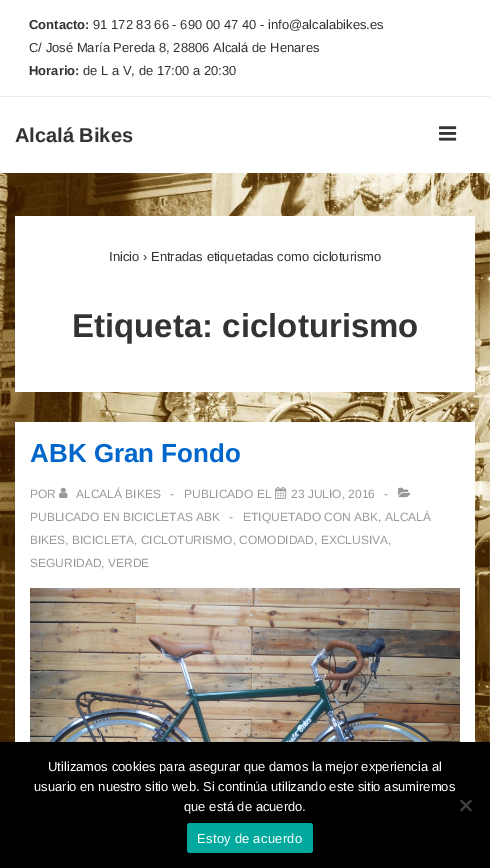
%!PS
<< /PageSize [490 868] >> setpagedevice
/rgb { 3 { 255 div 3 1 roll } repeat setrgbcolor } def
/font { [ exch dup neg 0 0 3 -1 roll 0 0 ] selectfont } def
/roundrect { 5 dict begin { /r /h /w /y /x } { exch def } forall
  x r add y moveto x w add y 2 copy h add r arct x w add y h add x 1 index r arct
  x y h add x y r arct x y 2 copy exch w add exch r arct closepath end } def
/picture { 5 dict begin { /h /w /y /x /name } { exch def } forall
  gsave x y translate w h scale
  w h 8 [w 0 0 h 0 0] name (r) file false 3 colorimage grestore end } def
0 868 translate 1 -1 scale
4 setmiterlimit
255 255 255 rgb
0 0 490 868 rectfill
(img/1.rgb) 0 173 490 569 picture
234 234 234 rgb
0 96 490 1 rectfill
(img/2.rgb) 439 126 18 15 picture
255 255 255 rgb
15 216 460 176 rectfill
15 422 460 320 rectfill
(img/3.rgb) 59 487 9 11 picture
(img/4.rgb) 275 486 12 13 picture
(img/5.rgb) 398 487 13 11 picture
(img/6.rgb) 30 588 430 154 picture
0 0 0 rgb
0 742 490 126 rectfill
64 64 64 rgb
470.5 799.5 moveto 472 801 lineto 461.5 811.5 lineto 460 810 lineto closepath fill
460 801 moveto 461.5 799.5 lineto 472 810 lineto 470.5 811.5 lineto closepath fill
0 169 157 rgb
187 823 126 30 3 roundrect fill
/LiberationSans-Bold 13 font
51 51 51 rgb
29 29 moveto (Contacto:) show
/LiberationSans-Regular 13 font
93 29 moveto (91 172 83 66 - 690 00 47 40 - info@alcalabikes.es) show
29 52 moveto (C/ José María Pereda 8, 28806 Alcalá de Henares) show
/LiberationSans-Bold 13 font
29 75 moveto (Horario:) show
/LiberationSans-Regular 13 font
83 75 moveto (de L a V, de 17:00 a 20:30) show
/LiberationSans-Bold 20 font
15 142 moveto (Alcalá Bikes) show
/LiberationSans-Regular 13 font
109 261 moveto (Inicio › Entradas etiquetadas como cicloturismo) show
/LiberationSans-Bold 33 font
72 337 moveto (Etiqueta: cicloturismo) show
/LiberationSans-Bold 26 font
0 102 204 rgb
30 462 moveto (ABK Gran Fondo) show
/LiberationSans-Regular 12 font
153 153 153 rgb
[
  [(POR) 30 498]
  [(ALCALÁ BIKES) 76 498]
  [(-) 170 498]
  [(PUBLICADO EL) 184 498]
  [(23 JULIO, 2016) 291 498]
  [(-) 384 498]
  [(PUBLICADO EN BICICLETAS ABK) 30 521]
  [(-) 229 521]
  [(ETIQUETADO CON ABK, ALCALÁ) 243 521]
  [(BIKES, BICICLETA, CICLOTURISMO, COMODIDAD, EXCLUSIVA,) 30 544]
  [(SEGURIDAD, VERDE) 30 567]
] { aload pop moveto show } forall
/LiberationSans-Regular 13 font
255 255 255 rgb
[
  [(Utilizamos cookies para asegurar que damos la mejor experiencia al) 48 771]
  [(usuario en nuestro sitio web. Si continúa utilizando este sitio asumiremos) 34 791]
  [(que está de acuerdo.) 184 811]
] { aload pop moveto show } forall
197 843 moveto 0.25 0 (Estoy de acuerdo) ashow
showpage
